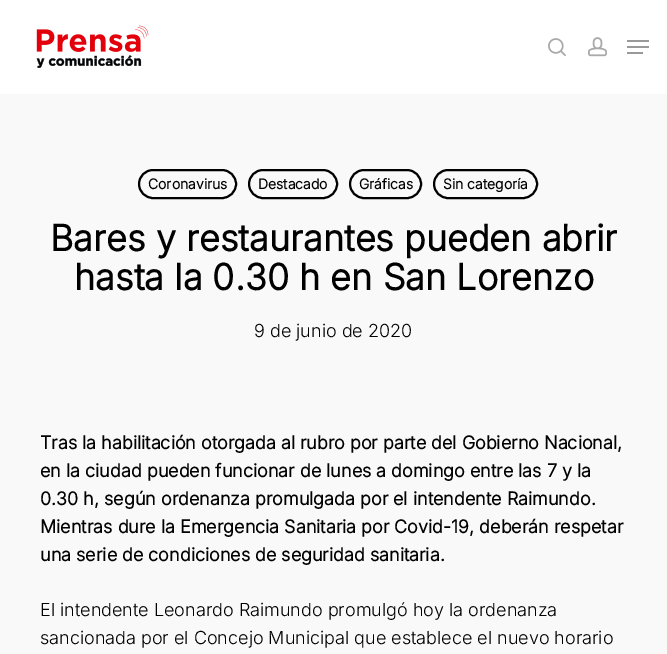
%!PS
<< /PageSize [667 654] >> setpagedevice
/rgb { 3 { 255 div 3 1 roll } repeat setrgbcolor } def
/font { [ exch dup neg 0 0 3 -1 roll 0 0 ] selectfont } def
/roundrect { 5 dict begin { /r /h /w /y /x } { exch def } forall
  x r add y moveto x w add y 2 copy h add r arct x w add y h add x 1 index r arct
  x y h add x y r arct x y 2 copy exch w add exch r arct closepath end } def
/picture { 5 dict begin { /h /w /y /x /name } { exch def } forall
  gsave x y translate w h scale
  w h 8 [w 0 0 h 0 0] name (r) file false 3 colorimage grestore end } def
0 654 translate 1 -1 scale
4 setmiterlimit
249 249 249 rgb
0 0 667 654 rectfill
255 255 255 rgb
0 0 667 94 rectfill
(img/1.rgb) 36 25 113 43 picture
(img/2.rgb) 548 38 18 18 picture
(img/3.rgb) 588 37 19 20 picture
[
  [627 40 22 2 153 153 153]
  [627 52 16 2 153 153 153]
  [627 46 22 2 153 153 153]
] { aload pop rgb rectfill } forall
0 0 0 rgb
2 setlinewidth
139 170 97 28 14 roundrect stroke
249 170 88 28 14 roundrect stroke
350 170 71 28 14 roundrect stroke
434 170 103 28 14 roundrect stroke
/Inter-Bold 14 font
[
  [(Coronavirus) 148 189]
  [(Destacado) 258 189]
  [(Gráficas) 359 189]
  [(Sin categoría) 443 189]
] { aload pop moveto show } forall
/Inter-Bold 36 font
50 251 moveto (Bares y restaurantes pueden abrir) show
74 290 moveto (hasta la 0.30 h en San Lorenzo) show
/Inter-Light 18 font
254 337 moveto (9 de junio de 2020) show
/Inter-Bold 18 font
[
  [(Tras la habilitación otorgada al rubro por parte del Gobierno Nacional,) 40 449]
  [(en la ciudad pueden funcionar de lunes a domingo entre las 7 y la) 40 477]
  [(0.30 h, según ordenanza promulgada por el intendente Raimundo.) 40 505]
  [(Mientras dure la Emergencia Sanitaria por Covid-19, deberán respetar) 40 533]
  [(una serie de condiciones de seguridad sanitaria.) 40 561]
] { aload pop moveto show } forall
/Inter-Light 18 font
40 616 moveto (El intendente Leonardo Raimundo promulgó hoy la ordenanza) show
40 644 moveto (sancionada por el Concejo Municipal que establece el nuevo horario) show
showpage
